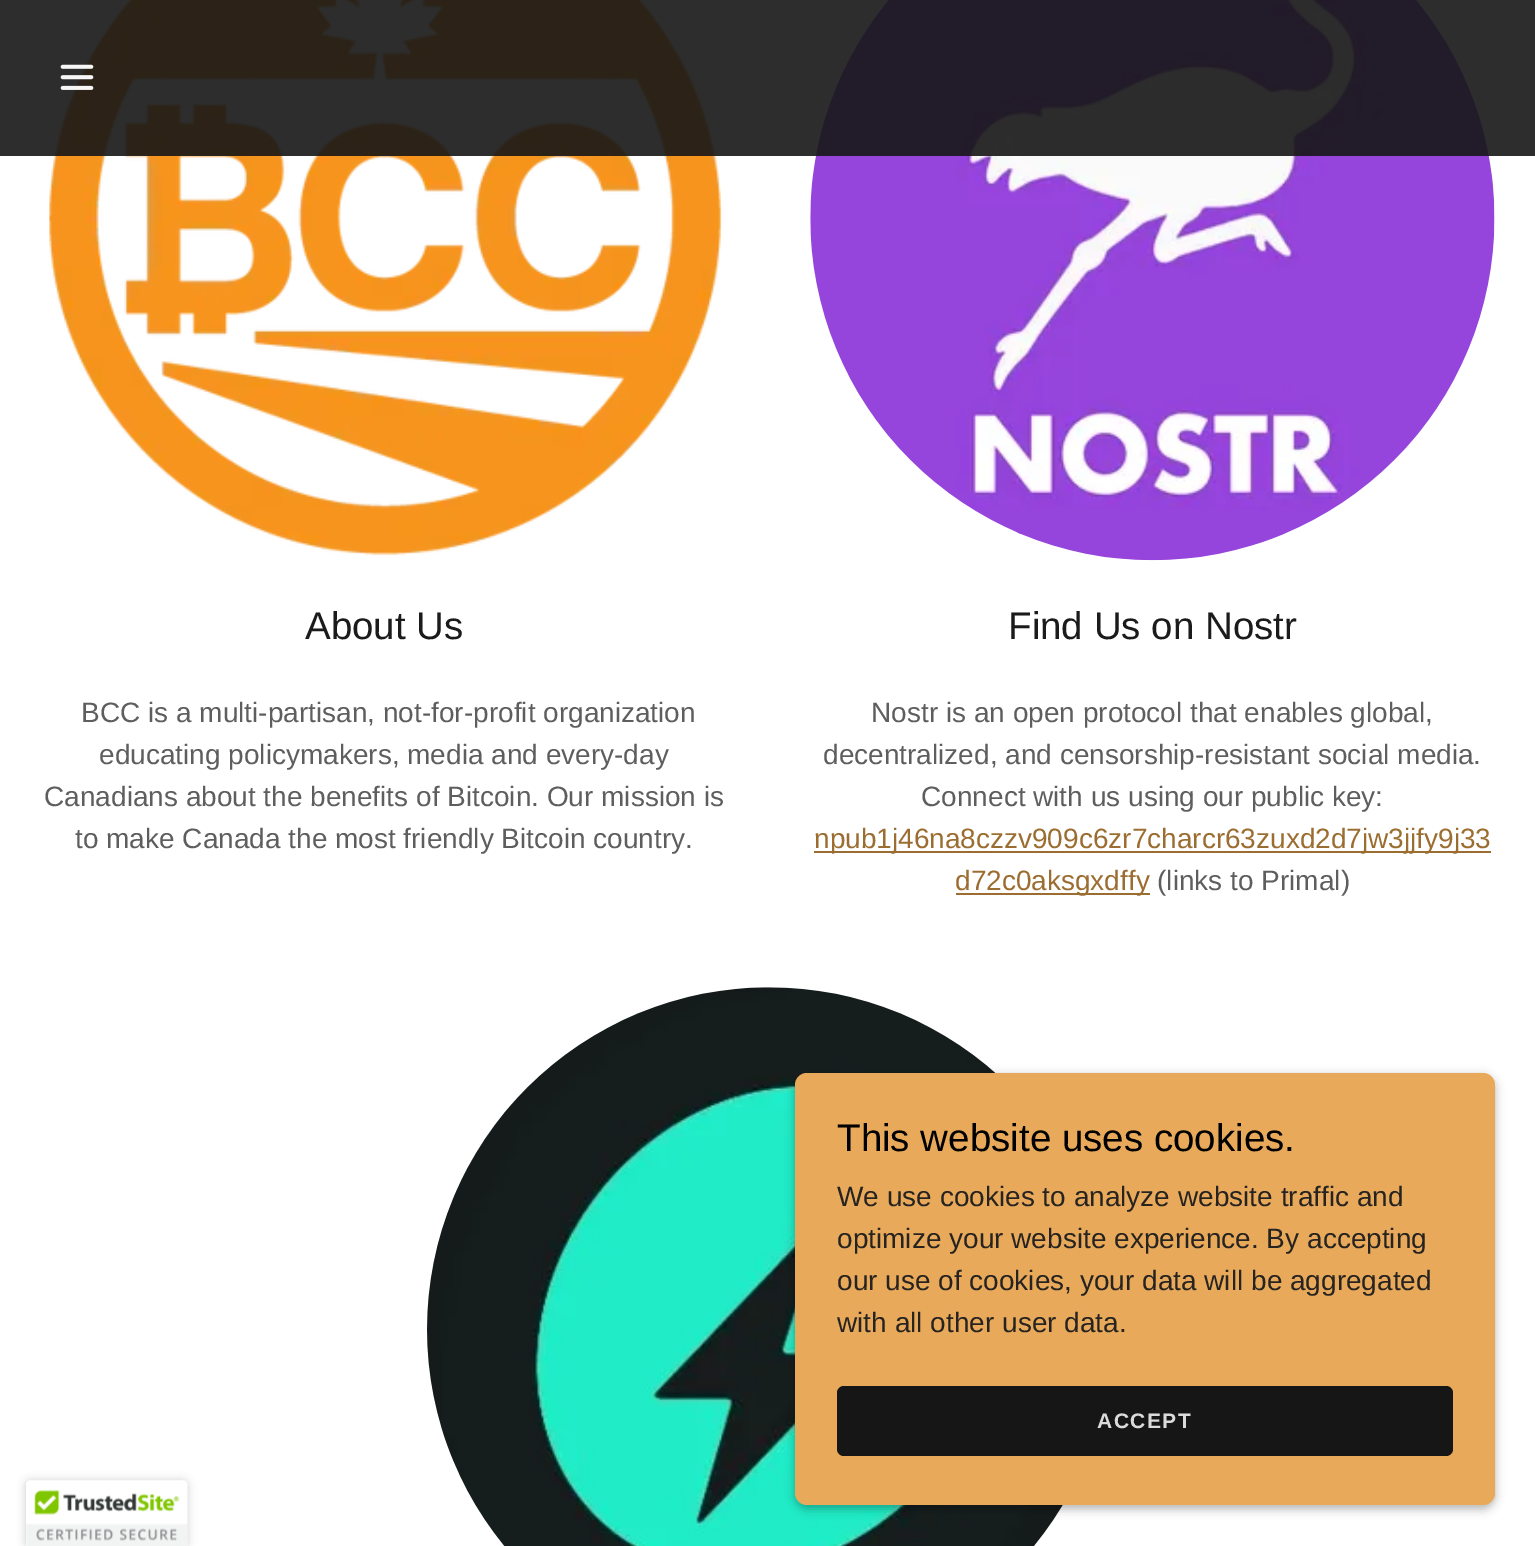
%!PS
<< /PageSize [1535 1546] /PageUsesTransparency true >> setpagedevice
/rgb { 3 { 255 div 3 1 roll } repeat setrgbcolor } def
/font { [ exch dup neg 0 0 3 -1 roll 0 0 ] selectfont } def
/alpha { dup .setfillconstantalpha .setstrokeconstantalpha } def
/roundrect { 5 dict begin { /r /h /w /y /x } { exch def } forall
  x r add y moveto x w add y 2 copy h add r arct x w add y h add x 1 index r arct
  x y h add x y r arct x y 2 copy exch w add exch r arct closepath end } def
/shadow { 12 dict begin { /a /b /q /h /w /y /x } { exch def } forall gsave /was 0 def
  9 -2 -9 { dup b mul 4 div /e exch def 1 sub .425 mul 2.718 exch exp 1 add a .99 .min exch div /now exch def
    1 1 now sub 1 was sub div sub alpha /was now def
    w h .min e 2 mul add 0 gt { x e sub y e sub w e 2 mul add h e 2 mul add
      q e add b .6 mul add w h .min 2 div e add .min 0 .max roundrect fill } if } for grestore end } def
/picture { 5 dict begin { /h /w /y /x /name } { exch def } forall
  gsave x y translate w h scale
  w h 8 [w 0 0 h 0 0] name (r) file false 3 colorimage grestore end } def
0 .pushpdf14devicefilter
0 1546 translate 1 -1 scale
4 setmiterlimit
255 255 255 rgb
0 0 1535 1546 rectfill
(img/2.rgb) 48 0 674 556 picture
(img/3.rgb) 810 0 685 561 picture
0.9 alpha
22 22 22 rgb
0 0 1535 156 rectfill
1 alpha
(img/1.rgb) 60 64 34 26 picture
156 109 48 rgb
814 851 677 2 rectfill
956 893 194 2 rectfill
(img/4.rgb) 427 987 636 559 picture
0 0 0 rgb
795 1076 700 433 12 5 0.3 shadow
232 170 90 rgb
795 1073 700 432 12 roundrect fill
22 22 22 rgb
837 1386 616 70 7 roundrect fill
0 0 0 rgb
26 1481 161 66 4 4.5 0.2 shadow
(img/5.rgb) 26 1480 162 66 picture
/LiberationSans-Regular 38.5 font
27 27 27 rgb
305 639 moveto (About Us) show
/LiberationSans-Regular 28 font
94 94 94 rgb
[
  [(BCC is a multi-partisan, not-for-profit organization) 81 722]
  [(educating policymakers, media and every-day) 99 764]
  [(Canadians about the benefits of Bitcoin. Our mission is) 44 806]
  [(to make Canada the most friendly Bitcoin country.) 75 848]
] { aload pop moveto show } forall
/LiberationSans-Regular 38.5 font
27 27 27 rgb
1008 639 moveto (Find Us on Nostr) show
/LiberationSans-Regular 28 font
94 94 94 rgb
[
  [(Nostr is an open protocol that enables global,) 871 722]
  [(decentralized, and censorship-resistant social media.) 823 764]
  [(Connect with us using our public key:) 921 806]
] { aload pop moveto show } forall
156 109 48 rgb
814 848 moveto (npub1j46na8czzv909c6zr7charcr63zuxd2d7jw3jjfy9j33) show
955 890 moveto (d72c0aksgxdffy) show
94 94 94 rgb
1157 890 moveto (\(links to Primal\)) show
/LiberationSans-Regular 38.5 font
0 0 0 rgb
837 1151 moveto (This website uses cookies.) show
/LiberationSans-Regular 28 font
39 35 32 rgb
[
  [(We use cookies to analyze website traffic and) 837 1206]
  [(optimize your website experience. By accepting) 837 1248]
  [(our use of cookies, your data will be aggregated) 837 1290]
  [(with all other user data.) 837 1332]
] { aload pop moveto show } forall
/LiberationSans-Bold 21 font
219 219 219 rgb
1097 1428 moveto 1.5 0 (ACCEPT) ashow
.poppdf14devicefilter showpage
